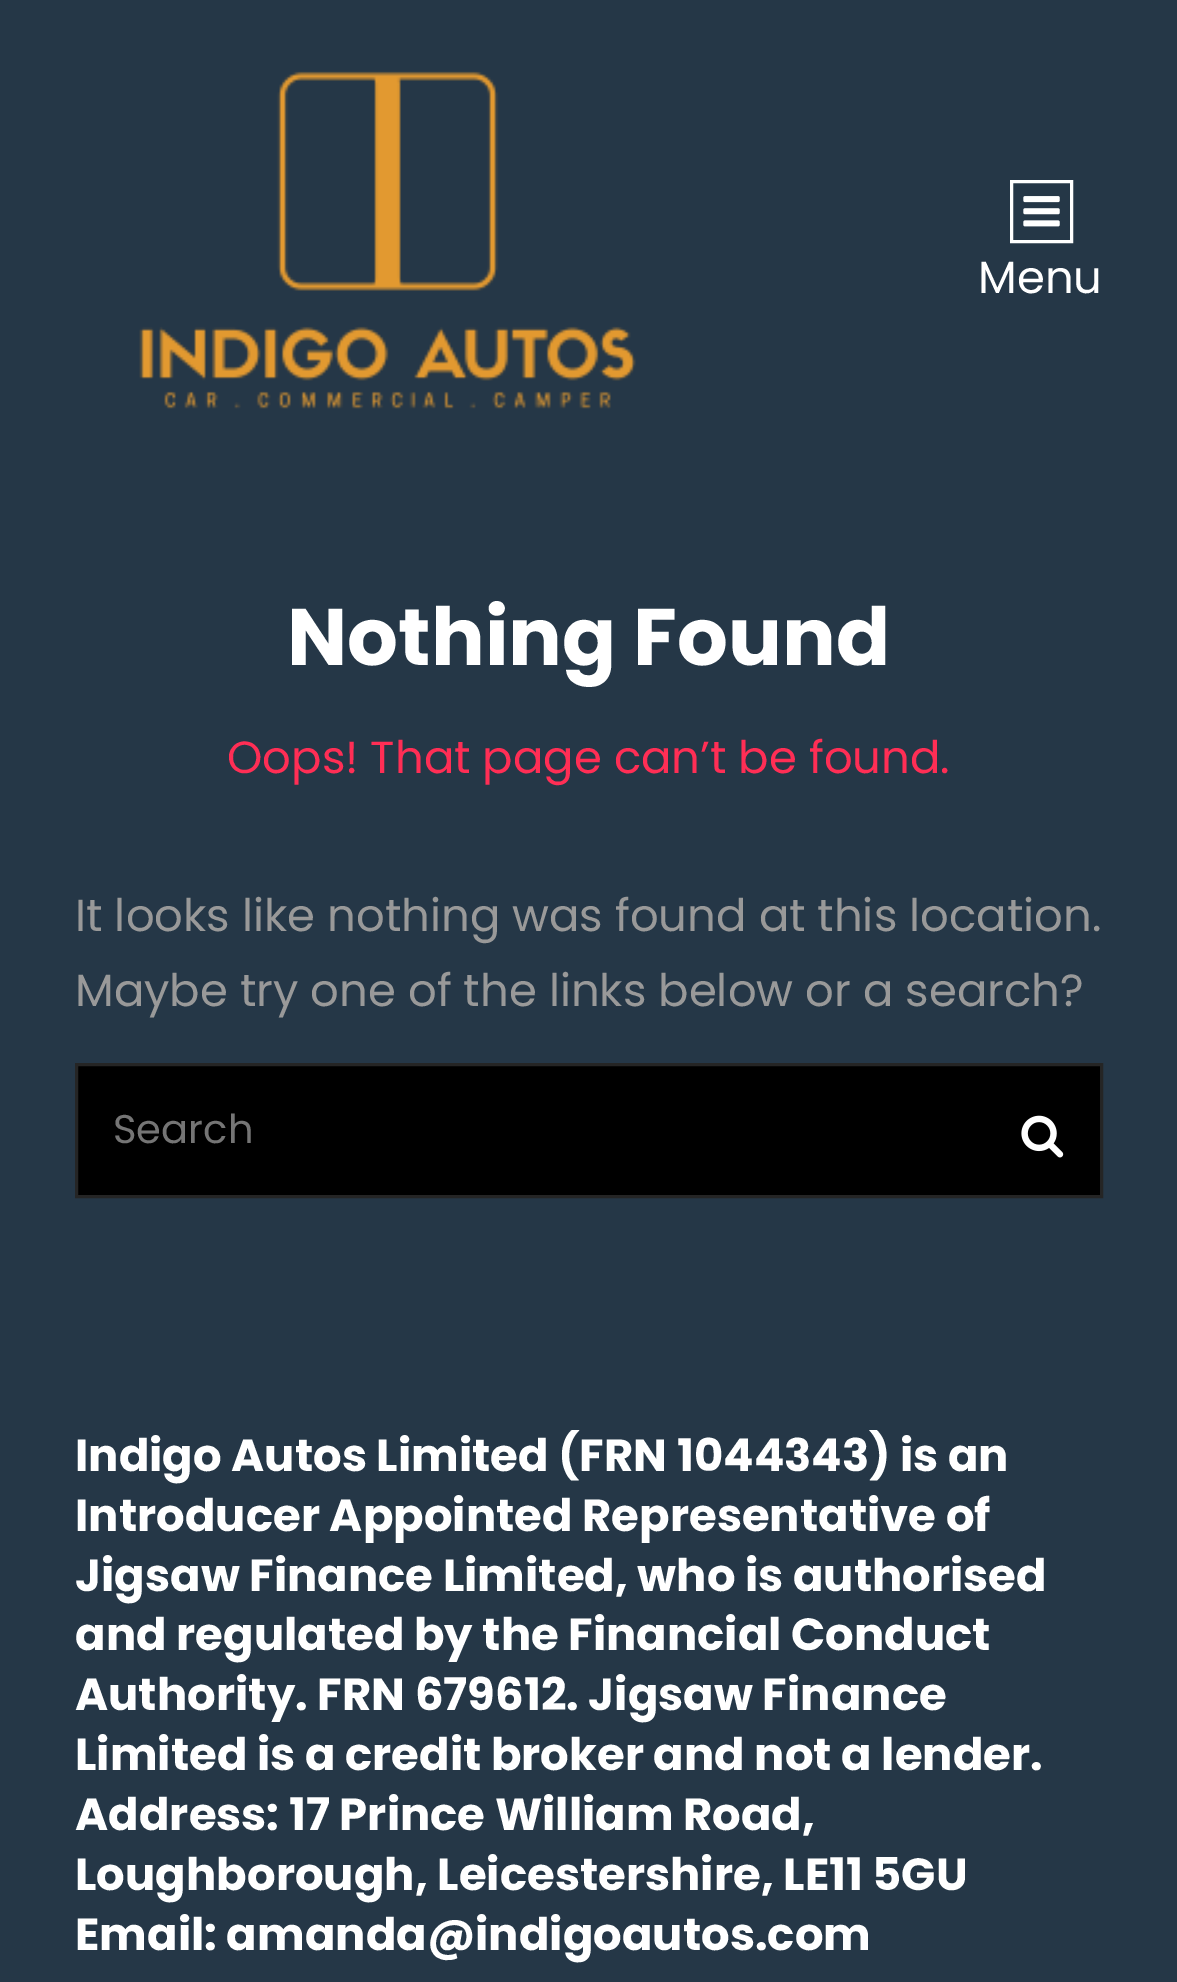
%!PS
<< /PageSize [1177 1982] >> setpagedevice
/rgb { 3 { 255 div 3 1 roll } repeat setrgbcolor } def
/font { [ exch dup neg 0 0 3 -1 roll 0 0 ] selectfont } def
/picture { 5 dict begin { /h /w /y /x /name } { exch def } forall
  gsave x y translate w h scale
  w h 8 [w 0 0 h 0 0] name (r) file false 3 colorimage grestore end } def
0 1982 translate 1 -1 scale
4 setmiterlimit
37 55 71 rgb
0 0 1177 1982 rectfill
(img/1.rgb) 139 71 497 338 picture
255 255 255 rgb
3 setlinewidth
1011.5 181.5 60 60 rectstroke
(img/2.rgb) 1023 196 37 31 picture
0 0 0 rgb
76.5 1064.5 moveto 1101.5 1064.5 lineto 1101.5 1196.5 lineto 76.5 1196.5 lineto closepath gsave fill grestore
37 37 37 rgb
stroke
(img/3.rgb) 1021 1115 43 43 picture
/Poppins-Regular 45 font
255 255 255 rgb
978 293 moveto (Menu) show
/Poppins-Bold 80 font
287 665 moveto (Nothing Found) show
/Poppins-Regular 45 font
255 46 85 rgb
227 773 moveto (Oops! That page can’t be found.) show
153 153 153 rgb
75 931 moveto (It looks like nothing was found at this location.) show
75 1006 moveto (Maybe try one of the links below or a search?) show
/Poppins-Regular 40 font
117 117 117 rgb
113 1143 moveto (Search) show
/Poppins-Bold 45 font
255 255 255 rgb
[
  [(Indigo Autos Limited \(FRN 1044343\) is an) 75 1471]
  [(Introducer Appointed Representative of) 75 1531]
  [(Jigsaw Finance Limited, who is authorised) 75 1591]
  [(and regulated by the Financial Conduct) 75 1650]
  [(Authority. FRN 679612. Jigsaw Finance) 75 1710]
  [(Limited is a credit broker and not a lender.) 75 1770]
  [(Address: 17 Prince William Road,) 75 1830]
  [(Loughborough, Leicestershire, LE11 5GU) 75 1890]
  [(Email: amanda@indigoautos.com) 75 1950]
] { aload pop moveto show } forall
showpage
